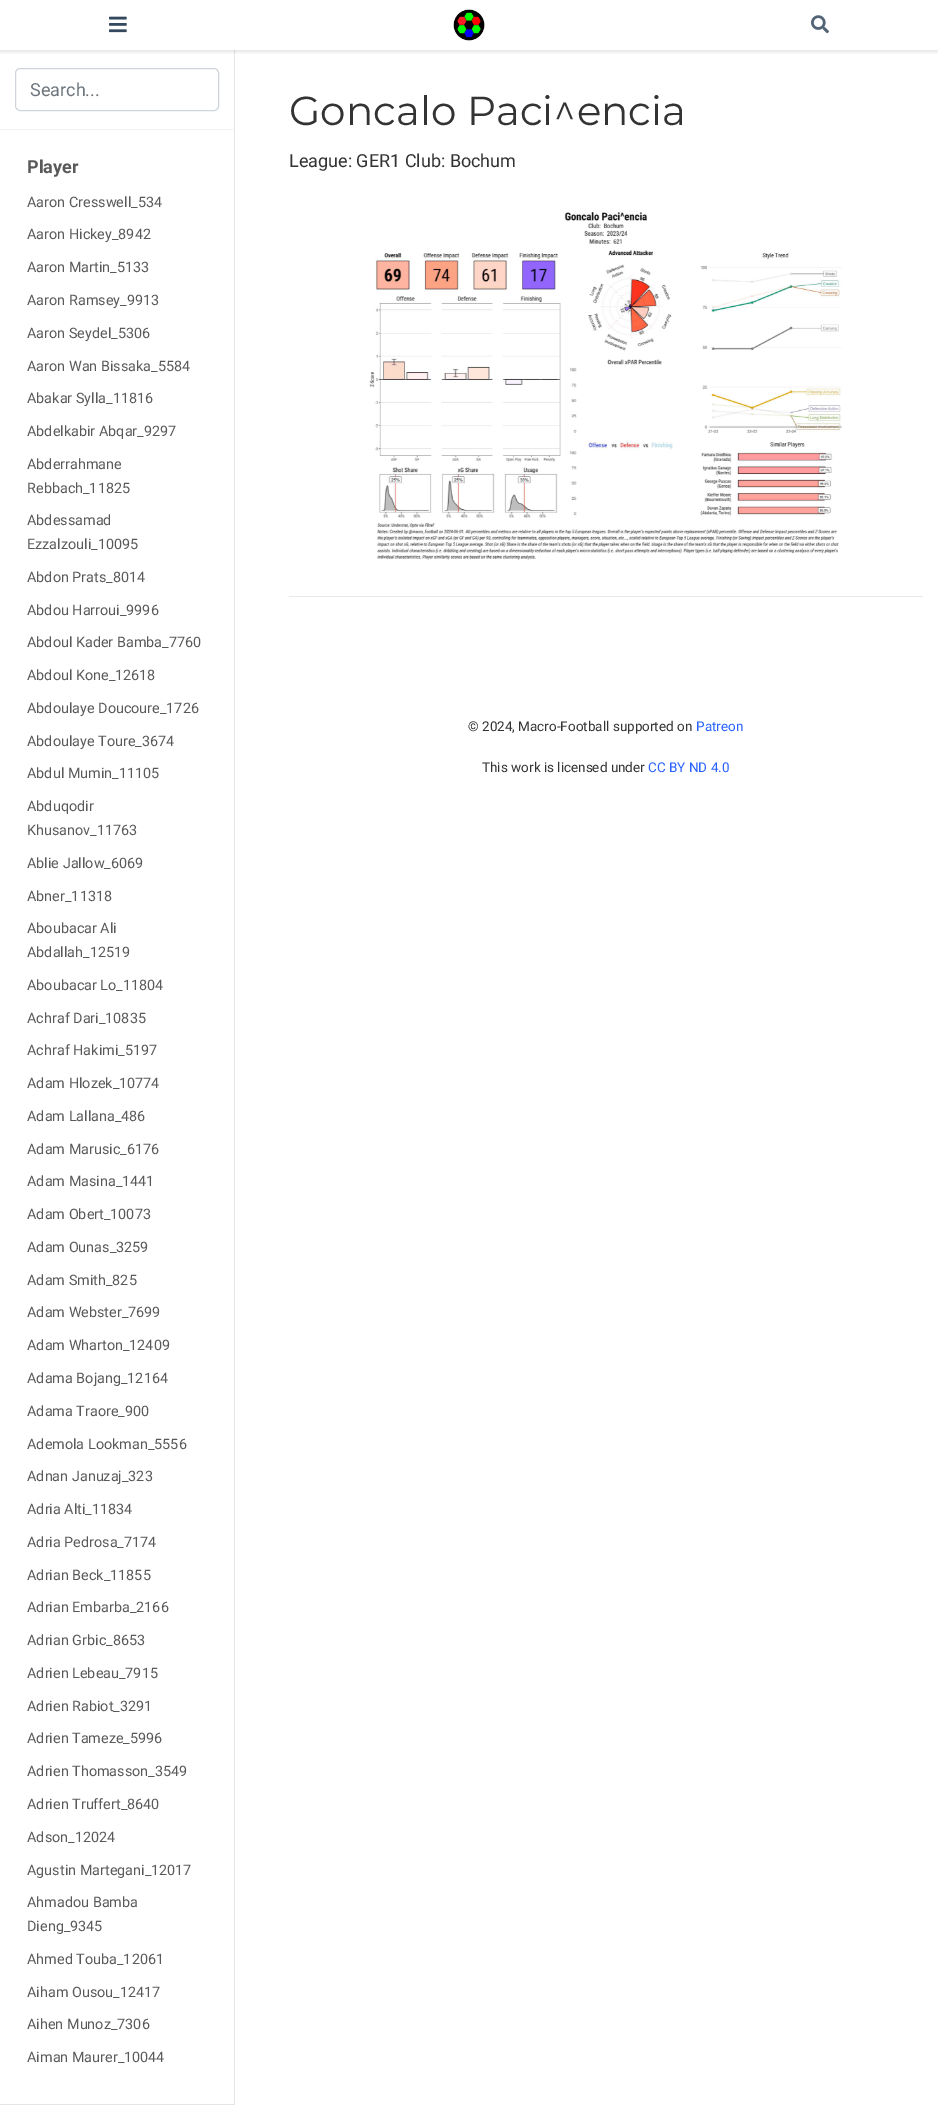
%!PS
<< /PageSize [938 2105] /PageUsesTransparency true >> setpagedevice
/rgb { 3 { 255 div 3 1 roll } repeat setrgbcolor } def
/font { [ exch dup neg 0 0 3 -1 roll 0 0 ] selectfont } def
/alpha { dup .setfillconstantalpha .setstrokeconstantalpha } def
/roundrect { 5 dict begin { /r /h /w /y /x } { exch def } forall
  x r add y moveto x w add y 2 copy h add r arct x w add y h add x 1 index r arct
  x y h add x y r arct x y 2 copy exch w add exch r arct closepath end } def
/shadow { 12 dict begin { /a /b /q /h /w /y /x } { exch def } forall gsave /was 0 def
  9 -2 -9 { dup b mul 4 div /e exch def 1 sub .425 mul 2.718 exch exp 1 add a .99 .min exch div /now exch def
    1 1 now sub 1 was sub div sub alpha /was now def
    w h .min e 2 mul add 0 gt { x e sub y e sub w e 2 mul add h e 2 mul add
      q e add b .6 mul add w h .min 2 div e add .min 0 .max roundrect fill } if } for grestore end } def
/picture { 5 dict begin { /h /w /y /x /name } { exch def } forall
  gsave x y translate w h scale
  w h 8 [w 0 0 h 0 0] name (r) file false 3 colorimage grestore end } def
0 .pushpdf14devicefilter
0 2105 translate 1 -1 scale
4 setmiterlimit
255 255 255 rgb
0 0 938 2105 rectfill
230 230 230 rgb
235 50 moveto 235 2105 lineto 234 2104 lineto 234 50 lineto closepath fill
gsave
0 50 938 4 rectclip
0 0 0 rgb
0 2 938 50 0 2 0.11 shadow
grestore
(img/1.rgb) 109 16 18 17 picture
(img/2.rgb) 453 9 32 32 picture
(img/3.rgb) 811 15 18 19 picture
0.1 alpha
0 0 0 rgb
235 2105 moveto 0 2105 lineto 0 2104 lineto 234 2104 lineto closepath fill
1 alpha
242 242 242 rgb
0 129 234 1 rectfill
206 212 218 rgb
15.5 68.5 203 42 4.5 roundrect stroke
(img/4.rgb) 369 212 474 348 picture
232 232 232 rgb
289 596 634 1 rectfill
/Roboto-Regular 18 font
108 117 125 rgb
30 96 moveto (Search...) show
/Roboto-Bold 18 font
89 89 89 rgb
27 173 moveto (Player) show
/Roboto-Regular 14.4 font
[
  [(Aaron Cresswell_534) 27 207]
  [(Aaron Hickey_8942) 27 239]
  [(Aaron Martin_5133) 27 272]
  [(Aaron Ramsey_9913) 27 305]
  [(Aaron Seydel_5306) 27 338]
  [(Aaron Wan Bissaka_5584) 27 371]
  [(Abakar Sylla_11816) 27 403]
  [(Abdelkabir Abqar_9297) 27 436]
  [(Abderrahmane) 27 469]
  [(Rebbach_11825) 27 493]
  [(Abdessamad) 27 525]
  [(Ezzalzouli_10095) 27 549]
  [(Abdon Prats_8014) 27 582]
  [(Abdou Harroui_9996) 27 615]
  [(Abdoul Kader Bamba_7760) 27 647]
  [(Abdoul Kone_12618) 27 680]
  [(Abdoulaye Doucoure_1726) 27 713]
  [(Abdoulaye Toure_3674) 27 746]
  [(Abdul Mumin_11105) 27 778]
  [(Abduqodir) 27 811]
  [(Khusanov_11763) 27 835]
  [(Ablie Jallow_6069) 27 868]
  [(Abner_11318) 27 901]
  [(Aboubacar Ali) 27 933]
  [(Abdallah_12519) 27 957]
  [(Aboubacar Lo_11804) 27 990]
  [(Achraf Dari_10835) 27 1023]
  [(Achraf Hakimi_5197) 27 1055]
  [(Adam Hlozek_10774) 27 1088]
  [(Adam Lallana_486) 27 1121]
  [(Adam Marusic_6176) 27 1154]
  [(Adam Masina_1441) 27 1186]
  [(Adam Obert_10073) 27 1219]
  [(Adam Ounas_3259) 27 1252]
  [(Adam Smith_825) 27 1285]
  [(Adam Webster_7699) 27 1317]
  [(Adam Wharton_12409) 27 1350]
  [(Adama Bojang_12164) 27 1383]
  [(Adama Traore_900) 27 1416]
  [(Ademola Lookman_5556) 27 1449]
  [(Adnan Januzaj_323) 27 1481]
  [(Adria Alti_11834) 27 1514]
  [(Adria Pedrosa_7174) 27 1547]
  [(Adrian Beck_11855) 27 1580]
  [(Adrian Embarba_2166) 27 1612]
  [(Adrian Grbic_8653) 27 1645]
  [(Adrien Lebeau_7915) 27 1678]
  [(Adrien Rabiot_3291) 27 1711]
  [(Adrien Tameze_5996) 27 1743]
  [(Adrien Thomasson_3549) 27 1776]
  [(Adrien Truffert_8640) 27 1809]
  [(Adson_12024) 27 1842]
  [(Agustin Martegani_12017) 27 1875]
  [(Ahmadou Bamba) 27 1907]
  [(Dieng_9345) 27 1931]
  [(Ahmed Touba_12061) 27 1964]
  [(Aiham Ousou_12417) 27 1997]
  [(Aihen Munoz_7306) 27 2029]
  [(Aiman Maurer_10044) 27 2062]
] { aload pop moveto show } forall
/Montserrat-Regular 40.5 font
51 51 51 rgb
289 125 moveto (Goncalo Paci^encia) show
/Roboto-Regular 18 font
289 167 moveto (League: GER1 Club: Bochum) show
/Roboto-Regular 13.5 font
468 731 moveto (© 2024, Macro-Football supported on) show
41 98 255 rgb
696 731 moveto (Patreon) show
51 51 51 rgb
482 772 moveto (This work is licensed under) show
41 98 255 rgb
648 772 moveto (CC BY ND 4.0) show
.poppdf14devicefilter showpage
